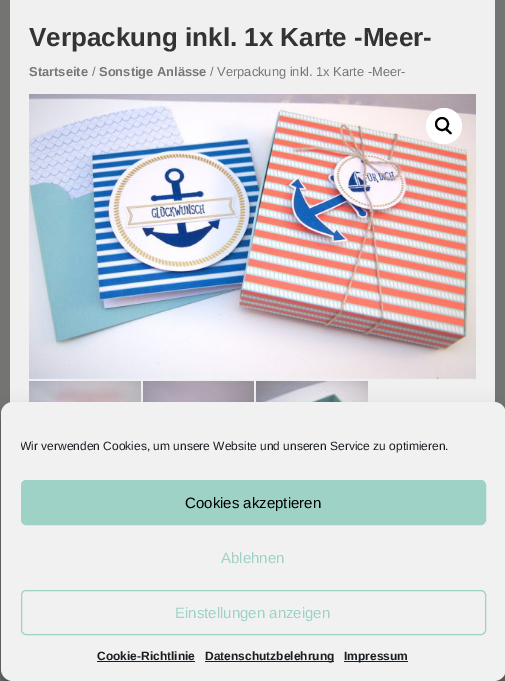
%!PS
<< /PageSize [505 681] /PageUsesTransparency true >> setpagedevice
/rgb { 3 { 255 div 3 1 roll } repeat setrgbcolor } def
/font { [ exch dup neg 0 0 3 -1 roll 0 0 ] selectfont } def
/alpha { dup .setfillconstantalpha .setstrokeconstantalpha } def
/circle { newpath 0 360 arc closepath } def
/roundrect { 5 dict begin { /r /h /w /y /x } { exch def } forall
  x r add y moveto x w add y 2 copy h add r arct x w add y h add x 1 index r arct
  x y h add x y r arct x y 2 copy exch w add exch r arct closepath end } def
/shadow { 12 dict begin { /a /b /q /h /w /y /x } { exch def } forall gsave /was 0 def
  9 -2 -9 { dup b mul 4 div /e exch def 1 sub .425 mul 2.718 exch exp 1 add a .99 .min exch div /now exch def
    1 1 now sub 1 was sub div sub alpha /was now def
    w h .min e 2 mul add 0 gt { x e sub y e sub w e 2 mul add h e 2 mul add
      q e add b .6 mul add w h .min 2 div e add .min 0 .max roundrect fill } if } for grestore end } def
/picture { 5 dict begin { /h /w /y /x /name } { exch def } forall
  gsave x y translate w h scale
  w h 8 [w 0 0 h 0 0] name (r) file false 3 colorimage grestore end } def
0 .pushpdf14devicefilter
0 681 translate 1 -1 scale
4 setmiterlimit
116 116 115 rgb
0 0 505 681 rectfill
240 240 240 rgb
10 0 485 681 rectfill
(img/1.rgb) 29 94 447 285 picture
(img/2.rgb) 29 381 112 21 picture
(img/3.rgb) 143 381 111 21 picture
(img/4.rgb) 256 381 112 21 picture
255 255 255 rgb
444 126 18 circle fill
0 0 0 rgb
2 setlinewidth
442 124 6 circle stroke
445.5 128.5 moveto 447 127 448.5 130 449 130.5 curveto 450 131 452.5 133 451.5 134 curveto 450 135 448.5 132.5 448 132 curveto 447 131.5 444.5 129.5 445.5 128.5 curveto closepath fill
gsave
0 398 moveto 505 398 lineto 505 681 lineto 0 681 lineto closepath 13 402 moveto 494 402 lineto 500.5 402 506 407.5 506 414 curveto 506 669 lineto 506 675.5 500.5 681 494 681 curveto 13 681 lineto 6.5 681 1 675.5 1 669 curveto 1 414 lineto 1 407.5 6.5 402 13 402 curveto closepath eoclip newpath
1 408 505 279 12 3 0.23 shadow
grestore
gsave
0 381 moveto 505 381 lineto 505 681 lineto 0 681 lineto closepath 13 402 moveto 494 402 lineto 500.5 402 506 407.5 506 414 curveto 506 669 lineto 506 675.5 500.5 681 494 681 curveto 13 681 lineto 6.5 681 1 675.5 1 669 curveto 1 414 lineto 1 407.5 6.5 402 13 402 curveto closepath eoclip newpath
1 412 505 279 12 10 0.19 shadow
grestore
241 241 241 rgb
1 402 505 279 12 roundrect fill
158 210 198 rgb
21.5 480.5 464 44 4.5 roundrect gsave fill grestore
1 setlinewidth
stroke
21.5 590.5 464 44 4.5 roundrect stroke
[
  [97 661 98 1 25 30 35]
  [205 661 129 1 25 30 35]
  [344 661 64 1 25 30 35]
] { aload pop rgb rectfill } forall
/LiberationSans-Bold 26 font
51 51 51 rgb
29 46 moveto (Verpackung inkl. 1x Karte -Meer-) show
/LiberationSans-Bold 12.9 font
118 118 118 rgb
29 76 moveto (Startseite) show
/LiberationSans-Regular 12.9 font
92 76 moveto (/) show
/LiberationSans-Bold 12.9 font
99 76 moveto (Sonstige Anlässe) show
/LiberationSans-Regular 12.9 font
210 76 moveto (/ Verpackung inkl. 1x Karte -Meer-) show
gsave
21 437 465 23 rectclip
/LiberationSans-Regular 12 font
25 30 35 rgb
20 450 moveto (Wir verwenden Cookies, um unsere Website und unseren Service zu optimieren.) show
grestore
/LiberationSans-Regular 15 font
0 0 0 rgb
185 508 moveto (Cookies akzeptieren) show
158 210 198 rgb
221 563 moveto (Ablehnen) show
175 618 moveto (Einstellungen anzeigen) show
/LiberationSans-Bold 12 font
25 30 35 rgb
[
  [(Cookie-Richtlinie) 97 660]
  [(Datenschutzbelehrung) 205 660]
  [(Impressum) 344 660]
] { aload pop moveto show } forall
.poppdf14devicefilter showpage
